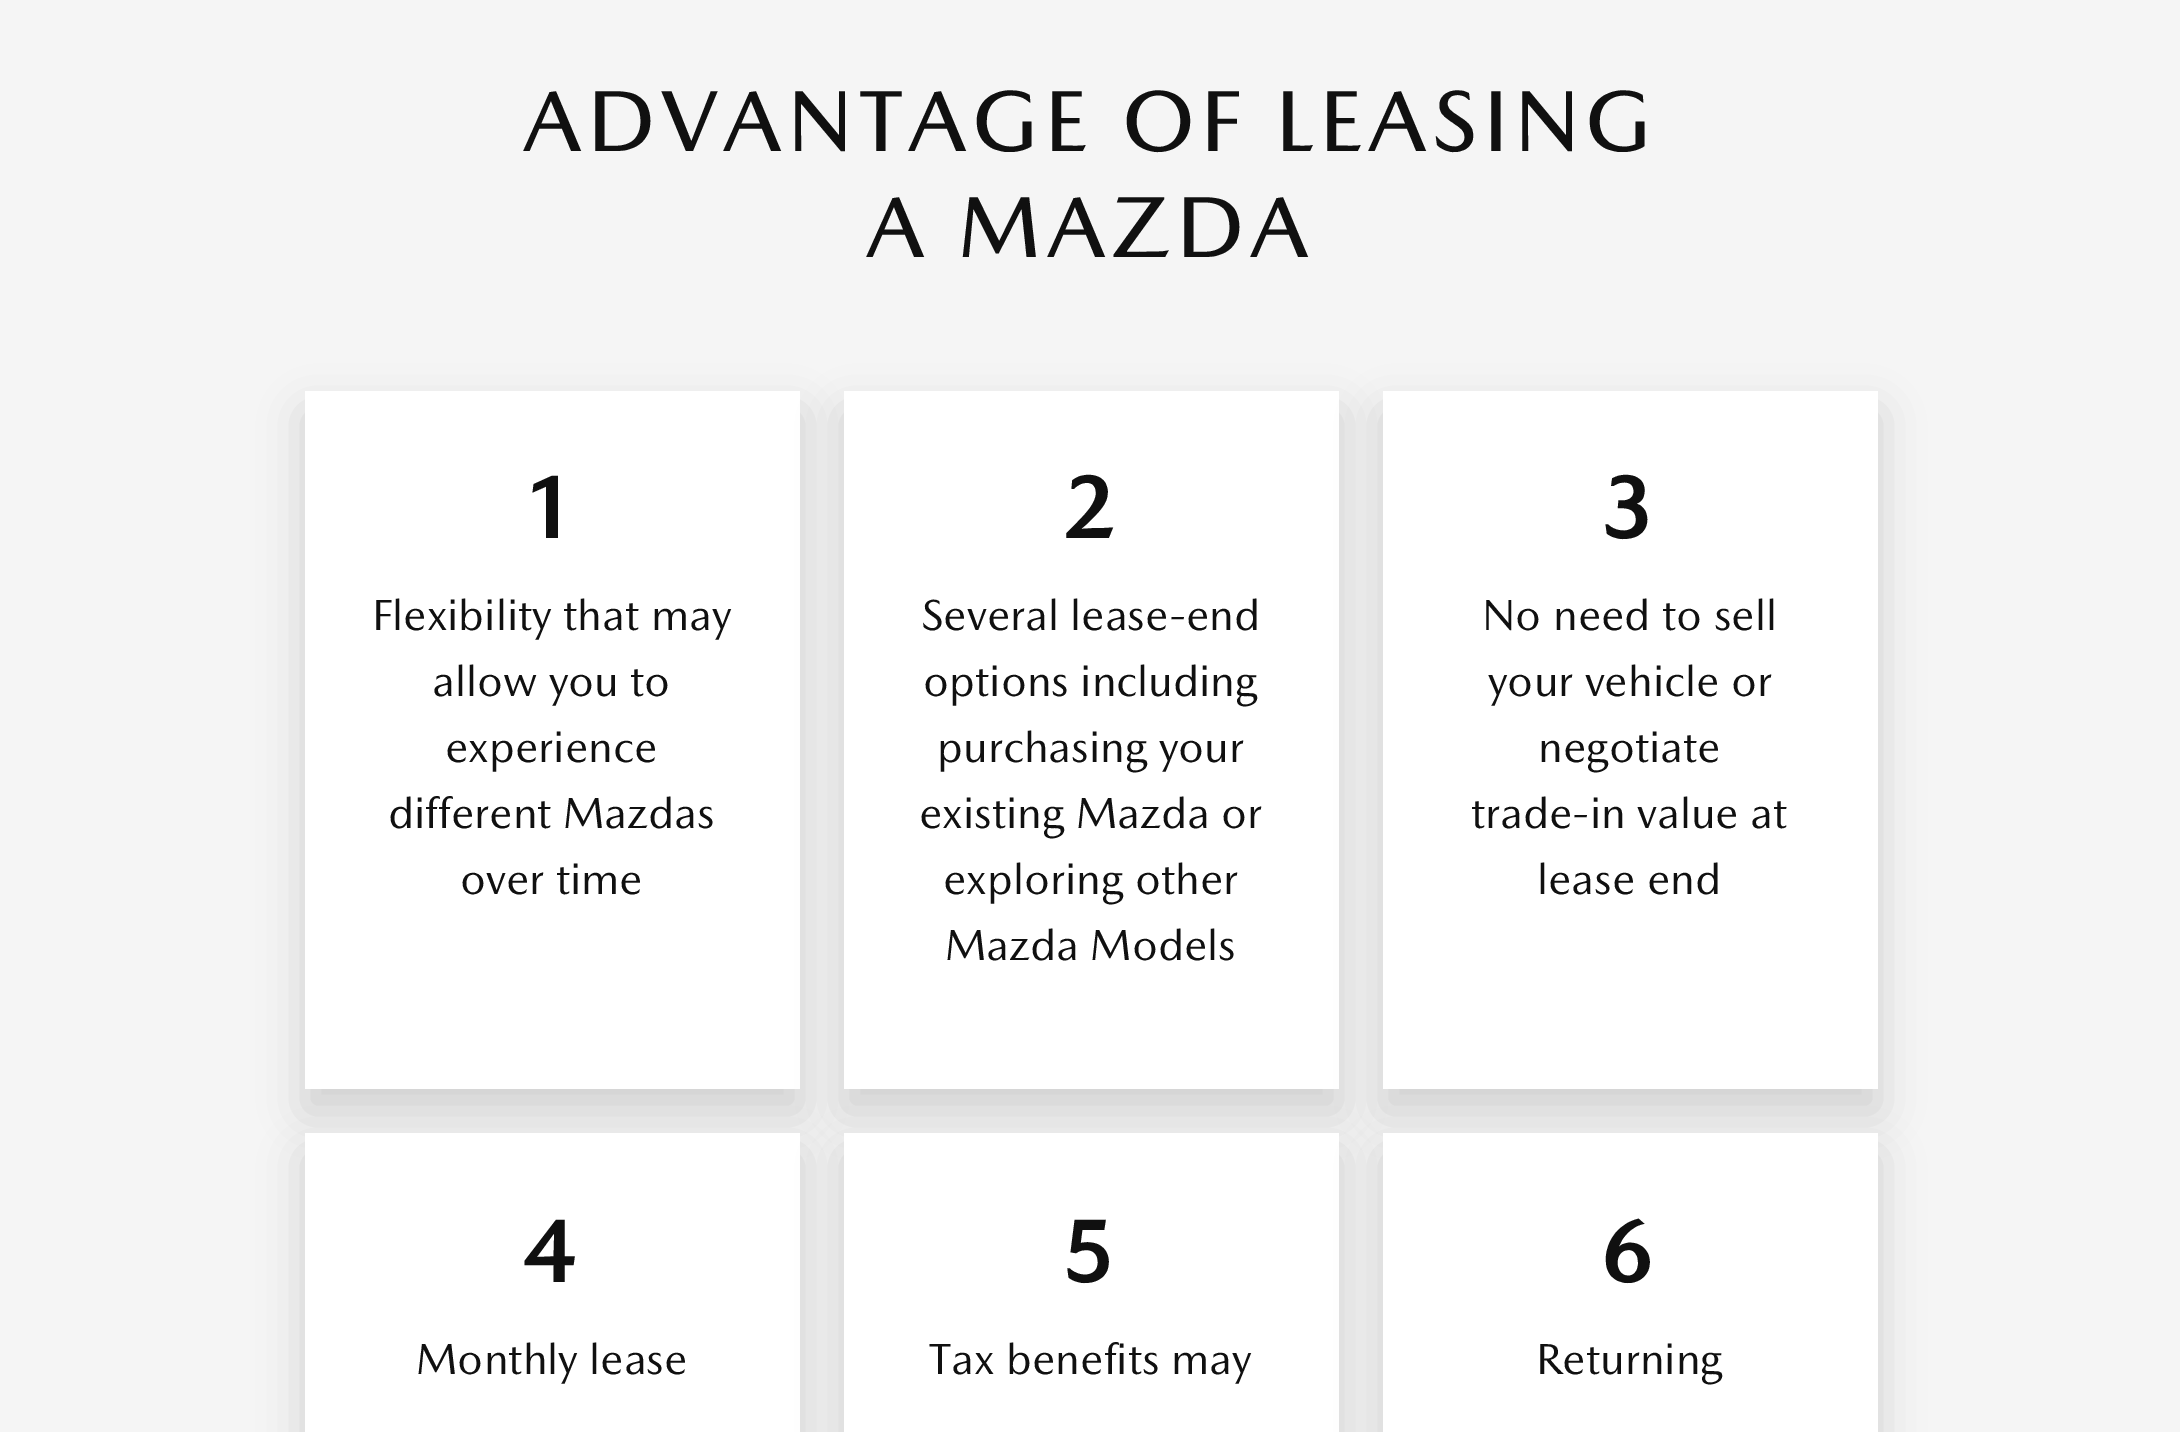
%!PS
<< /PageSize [2180 1432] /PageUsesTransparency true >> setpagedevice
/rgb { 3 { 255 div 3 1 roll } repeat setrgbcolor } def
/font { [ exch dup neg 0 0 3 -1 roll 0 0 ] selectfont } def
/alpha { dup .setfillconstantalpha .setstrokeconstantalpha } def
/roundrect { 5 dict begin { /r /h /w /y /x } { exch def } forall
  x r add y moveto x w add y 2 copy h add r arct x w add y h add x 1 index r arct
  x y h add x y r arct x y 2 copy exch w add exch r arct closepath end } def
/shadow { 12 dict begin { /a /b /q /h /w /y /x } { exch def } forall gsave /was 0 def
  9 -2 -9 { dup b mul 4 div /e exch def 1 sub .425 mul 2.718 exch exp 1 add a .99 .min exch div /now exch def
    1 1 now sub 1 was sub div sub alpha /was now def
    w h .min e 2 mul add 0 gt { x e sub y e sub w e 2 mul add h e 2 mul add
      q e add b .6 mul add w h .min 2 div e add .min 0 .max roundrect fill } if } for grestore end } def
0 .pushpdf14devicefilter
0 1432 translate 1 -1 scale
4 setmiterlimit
245 245 245 rgb
0 0 2180 1432 rectfill
0 0 0 rgb
305 413 495 698 0 22 0.15 shadow
255 255 255 rgb
305 391 495 698 rectfill
0 0 0 rgb
844 413 495 698 0 22 0.15 shadow
255 255 255 rgb
844 391 495 698 rectfill
0 0 0 rgb
1383 413 495 698 0 22 0.15 shadow
255 255 255 rgb
1383 391 495 698 rectfill
0 0 0 rgb
305 1155 495 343 0 22 0.15 shadow
255 255 255 rgb
305 1133 495 299 rectfill
0 0 0 rgb
844 1155 495 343 0 22 0.15 shadow
255 255 255 rgb
844 1133 495 299 rectfill
0 0 0 rgb
1383 1155 495 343 0 22 0.15 shadow
255 255 255 rgb
1383 1133 495 299 rectfill
/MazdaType-Medium 88 font
16 16 16 rgb
523 151 moveto 5.5 0 (ADVANTAGE OF LEASING) ashow
866 257 moveto 5.5 0 (A MAZDA) ashow
/MazdaType-Bold 88 font
522 538 moveto 5.5 0 (1) ashow
/MazdaType-Regular 44 font
[
  [(Flexibility that may) 372 630]
  [(allow you to) 432 696]
  [(experience) 445 762]
  [(different Mazdas) 388 828]
  [(over time) 460 894]
] { aload pop moveto show } forall
/MazdaType-Bold 88 font
1061 538 moveto 5.5 0 (2) ashow
/MazdaType-Regular 44 font
[
  [(Several lease-end) 921 630]
  [(options including) 923 696]
  [(purchasing your) 937 762]
  [(existing Mazda or) 919 828]
  [(exploring other) 943 894]
  [(Mazda Models) 945 960]
] { aload pop moveto show } forall
/MazdaType-Bold 88 font
1600 538 moveto 5.5 0 (3) ashow
/MazdaType-Regular 44 font
[
  [(No need to sell) 1482 630]
  [(your vehicle or) 1488 696]
  [(negotiate) 1538 762]
  [(trade-in value at) 1471 828]
  [(lease end) 1537 894]
] { aload pop moveto show } forall
/MazdaType-Bold 88 font
522 1282 moveto 5.5 0 (4) ashow
/MazdaType-Regular 44 font
416 1374 moveto (Monthly lease) show
/MazdaType-Bold 88 font
1061 1282 moveto 5.5 0 (5) ashow
/MazdaType-Regular 44 font
929 1374 moveto (Tax benefits may) show
/MazdaType-Bold 88 font
1600 1282 moveto 5.5 0 (6) ashow
/MazdaType-Regular 44 font
1536 1374 moveto (Returning) show
.poppdf14devicefilter showpage
